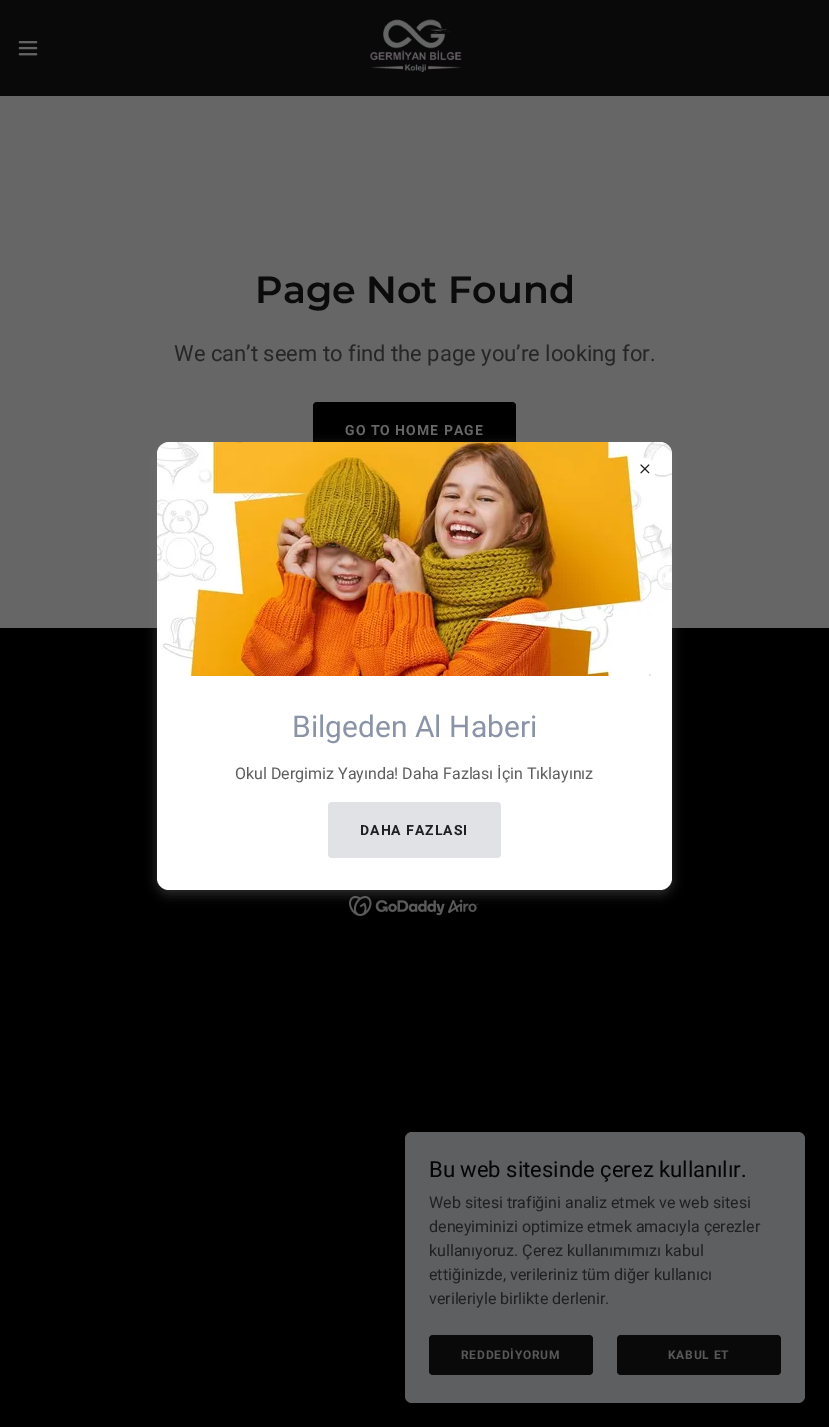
%!PS
<< /PageSize [829 1427] /PageUsesTransparency true >> setpagedevice
/rgb { 3 { 255 div 3 1 roll } repeat setrgbcolor } def
/font { [ exch dup neg 0 0 3 -1 roll 0 0 ] selectfont } def
/alpha { dup .setfillconstantalpha .setstrokeconstantalpha } def
/circle { newpath 0 360 arc closepath } def
/roundrect { 5 dict begin { /r /h /w /y /x } { exch def } forall
  x r add y moveto x w add y 2 copy h add r arct x w add y h add x 1 index r arct
  x y h add x y r arct x y 2 copy exch w add exch r arct closepath end } def
/shadow { 12 dict begin { /a /b /q /h /w /y /x } { exch def } forall gsave /was 0 def
  9 -2 -9 { dup b mul 4 div /e exch def 1 sub .425 mul 2.718 exch exp 1 add a .99 .min exch div /now exch def
    1 1 now sub 1 was sub div sub alpha /was now def
    w h .min e 2 mul add 0 gt { x e sub y e sub w e 2 mul add h e 2 mul add
      q e add b .6 mul add w h .min 2 div e add .min 0 .max roundrect fill } if } for grestore end } def
/picture { 5 dict begin { /h /w /y /x /name } { exch def } forall
  gsave x y translate w h scale
  w h 8 [w 0 0 h 0 0] name (r) file false 3 colorimage grestore end } def
0 .pushpdf14devicefilter
0 1427 translate 1 -1 scale
4 setmiterlimit
0 0 0 rgb
0 0 829 1427 rectfill
9 9 9 rgb
0 0 829 96 rectfill
(img/1.rgb) 18 41 20 15 picture
(img/2.rgb) 370 19 92 54 picture
102 102 102 rgb
0 96 829 532 rectfill
0 0 0 rgb
313 402 203 56 4 roundrect fill
(img/5.rgb) 349 896 130 20 picture
117 117 117 rgb
157 446 515 448 12 6 0.4 shadow
255 255 255 rgb
157 442 515 448 12 roundrect fill
(img/4.rgb) 157 442 515 234 picture
645 469 11 circle fill
(img/3.rgb) 640 464 10 10 picture
225 226 230 rgb
328 802 173 56 4 roundrect fill
94 95 96 rgb
405 1132 400 271 7 roundrect fill
9 9 9 rgb
429 1335 164 40 4 roundrect fill
617 1335 164 40 4 roundrect fill
/Montserrat-SemiBold 38 font
11 11 11 rgb
255 303 moveto (Page Not Found) show
/Roboto-Regular 22 font
38 38 38 rgb
174 361 moveto (We can’t seem to find the page you’re looking for.) show
/Roboto-Bold 14 font
102 102 102 rgb
345 435 moveto 1 0 (GO TO HOME PAGE) ashow
/Roboto-Regular 30 font
139 148 166 rgb
292 737 moveto (Bilgeden Al Haberi) show
/Roboto-Regular 16 font
94 94 94 rgb
235 779 moveto (Okul Dergimiz Yayında! Daha Fazlası İçin Tıklayınız) show
/Roboto-Bold 14 font
31 32 33 rgb
360 835 moveto 1 0 (DAHA FAZLASI) ashow
/Roboto-Regular 22 font
5 5 5 rgb
429 1177 moveto (Bu web sitesinde çerez kullanılır.) show
/Roboto-Regular 16 font
31 32 33 rgb
[
  [(Web sitesi trafiğini analiz etmek ve web sitesi) 429 1208]
  [(deneyiminizi optimize etmek amacıyla çerezler) 429 1232]
  [(kullanıyoruz. Çerez kullanımımızı kabul) 429 1256]
  [(ettiğinizde, verileriniz tüm diğer kullanıcı) 429 1280]
  [(verileriyle birlikte derlenir.) 429 1304]
] { aload pop moveto show } forall
/Roboto-Bold 12 font
88 88 88 rgb
461 1359 moveto 0.8 0 (REDDEDİYORUM) ashow
668 1359 moveto 0.8 0 (KABUL ET) ashow
.poppdf14devicefilter showpage
